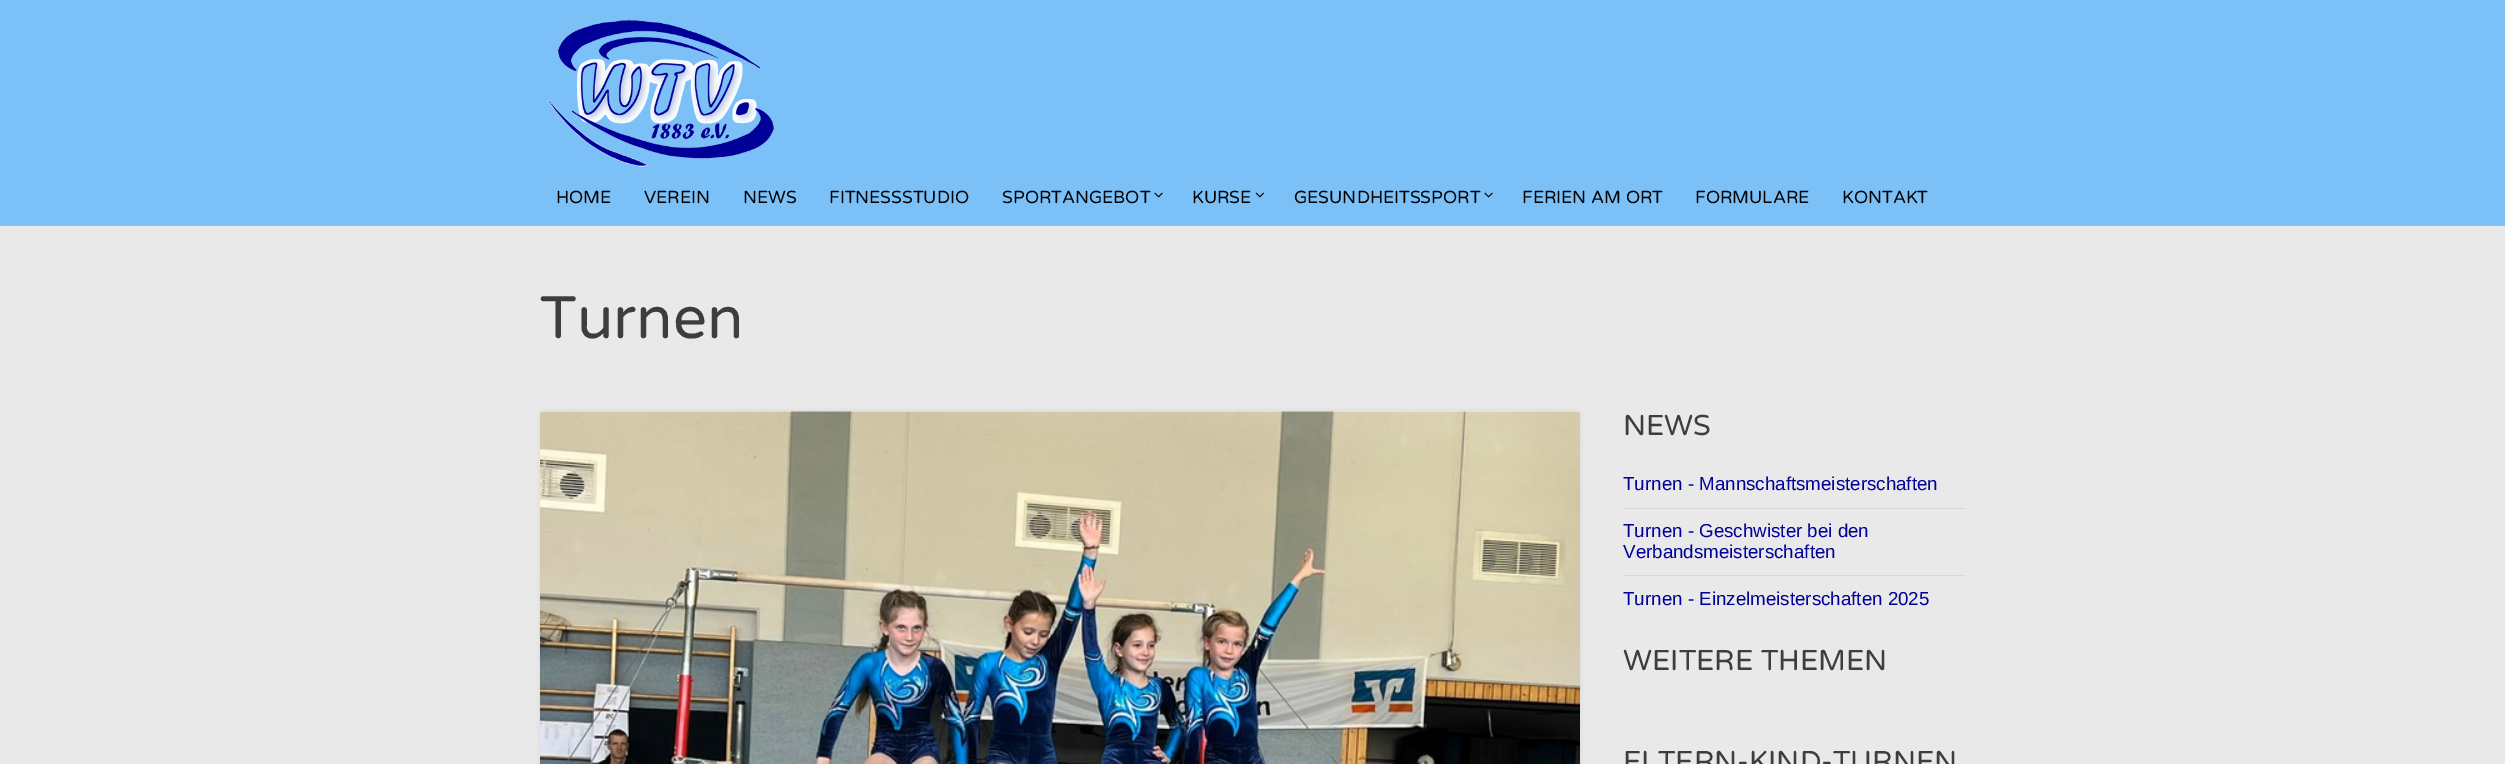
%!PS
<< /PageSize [2505 764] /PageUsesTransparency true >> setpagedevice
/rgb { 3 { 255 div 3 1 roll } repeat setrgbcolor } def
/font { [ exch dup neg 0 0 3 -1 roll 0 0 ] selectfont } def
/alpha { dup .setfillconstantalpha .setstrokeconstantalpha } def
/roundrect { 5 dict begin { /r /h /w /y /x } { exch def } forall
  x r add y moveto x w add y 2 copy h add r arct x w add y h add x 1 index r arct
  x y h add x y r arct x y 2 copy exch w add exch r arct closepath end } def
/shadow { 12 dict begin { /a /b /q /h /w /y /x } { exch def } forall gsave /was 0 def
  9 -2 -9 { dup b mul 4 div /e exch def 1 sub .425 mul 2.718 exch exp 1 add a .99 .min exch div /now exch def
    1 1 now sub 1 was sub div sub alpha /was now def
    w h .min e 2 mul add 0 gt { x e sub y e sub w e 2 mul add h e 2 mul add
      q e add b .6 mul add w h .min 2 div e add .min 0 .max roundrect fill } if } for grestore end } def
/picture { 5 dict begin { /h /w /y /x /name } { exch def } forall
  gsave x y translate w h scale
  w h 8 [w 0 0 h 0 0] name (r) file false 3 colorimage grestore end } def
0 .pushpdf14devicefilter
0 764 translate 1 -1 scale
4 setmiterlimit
123 192 247 rgb
0 0 2505 764 rectfill
134 197 248 rgb
0 225 2505 1 rectfill
(img/1.rgb) 547 20 228 147 picture
(img/2.rgb) 1154 192 9 6 picture
(img/3.rgb) 1255 192 9 6 picture
(img/2.rgb) 1484 192 9 6 picture
233 233 233 rgb
0 226 2505 538 rectfill
108 108 108 rgb
539 410 1042 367 5 2.5 0.14 shadow
255 255 255 rgb
540 411 1040 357 4 roundrect fill
(img/4.rgb) 540 411 1040 353 picture
217 217 217 rgb
1623 508 342 1 rectfill
1623 575 342 1 rectfill
/VarelaRound-Regular 17.5 font
0 0 0 rgb
[
  [(HOME) 556 203]
  [(VEREIN) 644 203]
  [(NEWS) 743 203]
  [(FITNESSSTUDIO) 829 203]
  [(SPORTANGEBOT) 1002 203]
  [(KURSE) 1192 203]
  [(GESUNDHEITSSPORT) 1294 203]
  [(FERIEN AM ORT) 1522 203]
  [(FORMULARE) 1695 203]
  [(KONTAKT) 1842 203]
] { aload pop moveto show } forall
/VarelaRound-Regular 60 font
61 61 61 rgb
540 338 moveto (Turnen) show
/VarelaRound-Regular 28.75 font
1623 435 moveto (NEWS) show
/LiberationSans-Regular 18.75 font
1 1 154 rgb
[
  [(Turnen - Mannschaftsmeisterschaften) 1623 490]
  [(Turnen - Geschwister bei den) 1623 537]
  [(Verbandsmeisterschaften) 1623 558]
  [(Turnen - Einzelmeisterschaften 2025) 1623 605]
] { aload pop moveto show } forall
/VarelaRound-Regular 28.75 font
61 61 61 rgb
1623 670 moveto (WEITERE THEMEN) show
1623 771 moveto (ELTERN-KIND-TURNEN) show
.poppdf14devicefilter showpage
